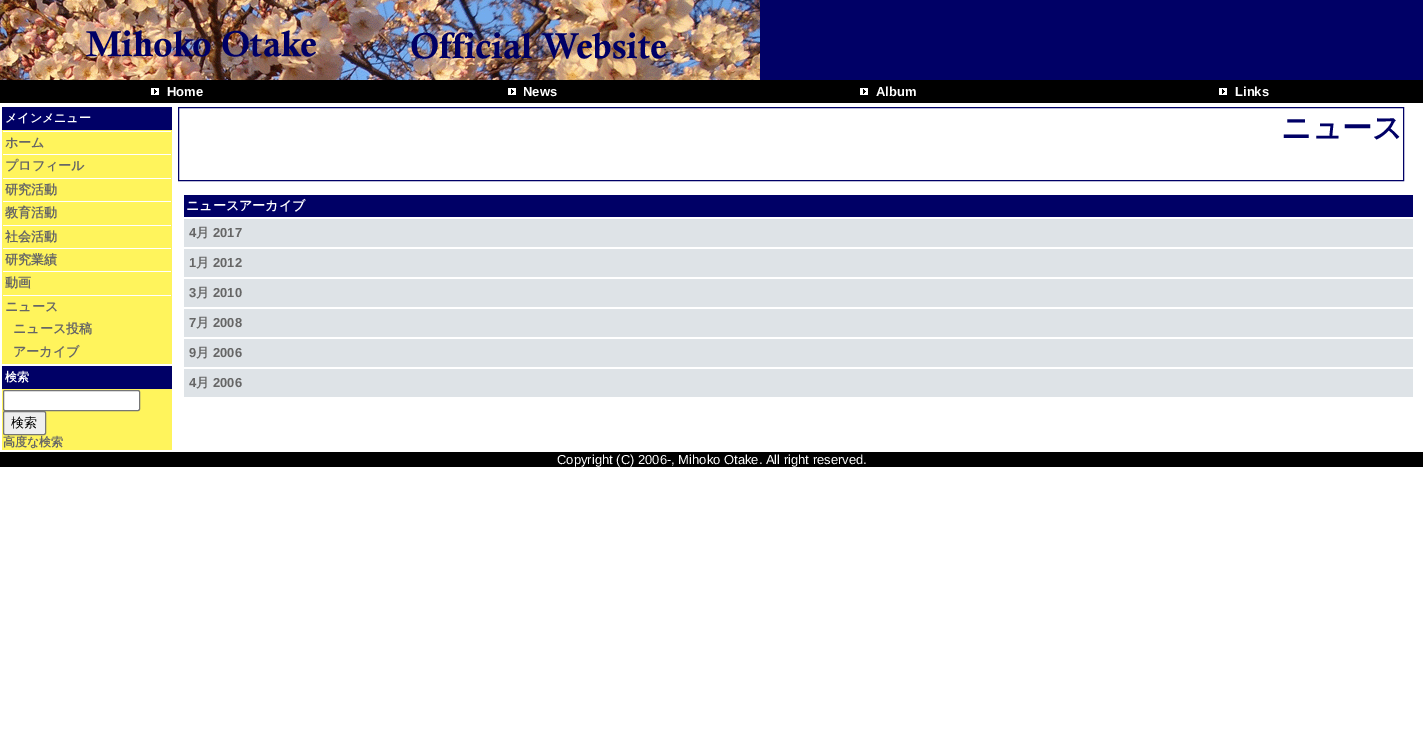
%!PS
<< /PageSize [1423 755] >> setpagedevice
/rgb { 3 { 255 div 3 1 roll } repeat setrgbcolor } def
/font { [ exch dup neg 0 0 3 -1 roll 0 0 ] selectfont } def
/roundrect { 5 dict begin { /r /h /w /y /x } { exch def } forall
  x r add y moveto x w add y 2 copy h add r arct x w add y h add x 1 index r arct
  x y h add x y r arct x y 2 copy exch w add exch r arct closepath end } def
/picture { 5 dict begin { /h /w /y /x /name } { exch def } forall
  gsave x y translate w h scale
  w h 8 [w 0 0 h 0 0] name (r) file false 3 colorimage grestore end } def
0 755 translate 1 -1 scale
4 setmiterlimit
255 255 255 rgb
0 0 1423 755 rectfill
0 0 102 rgb
760 0 663 80 rectfill
(img/1.rgb) 0 0 760 80 picture
0 0 0 rgb
0 80 1423 23 rectfill
(img/2.rgb) 151 88 8 7 picture
(img/2.rgb) 508 88 8 7 picture
(img/2.rgb) 860 88 8 7 picture
(img/2.rgb) 1219 88 8 7 picture
[
  [2 107 170 23 0 0 102]
  [2 130 170 234 255 244 92]
  [3 131 168 1 255 255 255]
  [3 154 168 1 255 255 255]
  [3 178 168 1 255 255 255]
  [3 201 168 1 255 255 255]
  [3 225 168 1 255 255 255]
  [3 248 168 1 255 255 255]
  [3 271 168 1 255 255 255]
  [3 295 168 1 255 255 255]
  [2 366 170 23 0 0 102]
  [2 389 170 61 255 244 92]
] { aload pop rgb rectfill } forall
255 255 255 rgb
3.5 390.5 136 20 1.5 roundrect gsave fill grestore
118 118 118 rgb
stroke
239 239 239 rgb
3.5 411.5 42 23 1.5 roundrect gsave fill grestore
118 118 118 rgb
stroke
0 0 102 rgb
178.5 107.5 1225 73 rectstroke
[
  [184 195 1229 22 0 0 102]
  [184 219 1229 28 222 227 231]
  [184 249 1229 28 222 227 231]
  [184 279 1229 28 222 227 231]
  [184 309 1229 28 222 227 231]
  [184 339 1229 28 222 227 231]
  [184 369 1229 28 222 227 231]
  [0 452 1423 15 0 0 0]
] { aload pop rgb rectfill } forall
/LiberationSans-Bold 13 font
255 255 255 rgb
[
  [(Home) 167 96]
  [(News) 523 96]
  [(Album) 876 96]
  [(Links) 1235 96]
] { aload pop moveto show } forall
/WenQuanYiZenHei-Bold 12 font
5 122 moveto (メインメニュー) show
/WenQuanYiZenHei-Bold 13 font
102 102 102 rgb
[
  [(ホーム) 5 147]
  [(プロフィール) 5 170]
  [(研究活動) 5 194]
  [(教育活動) 5 217]
  [(社会活動) 5 241]
  [(研究業績) 5 264]
  [(動画) 5 287]
  [(ニュース) 5 311]
  [(ニュース投稿) 13 333]
  [(アーカイブ) 13 356]
] { aload pop moveto show } forall
/WenQuanYiZenHei-Bold 12 font
255 255 255 rgb
5 381 moveto (検索) show
/WenQuanYiZenHei-Medium 13 font
0 0 0 rgb
11 427 moveto (検索) show
/WenQuanYiZenHei-Bold 12 font
102 102 102 rgb
3 446 moveto (高度な検索) show
/WenQuanYiZenHei-Bold 30 font
0 0 102 rgb
1281 138 moveto (ニュース) show
/WenQuanYiZenHei-Bold 13 font
255 255 255 rgb
186 210 moveto (ニュースアーカイブ) show
/LiberationSans-Bold 13 font
102 102 102 rgb
189 237 moveto (4) show
/WenQuanYiZenHei-Bold 13 font
196 237 moveto (月) show
/LiberationSans-Bold 13 font
213 237 moveto (2017) show
189 267 moveto (1) show
/WenQuanYiZenHei-Bold 13 font
196 267 moveto (月) show
/LiberationSans-Bold 13 font
213 267 moveto (2012) show
189 297 moveto (3) show
/WenQuanYiZenHei-Bold 13 font
196 297 moveto (月) show
/LiberationSans-Bold 13 font
213 297 moveto (2010) show
189 327 moveto (7) show
/WenQuanYiZenHei-Bold 13 font
196 327 moveto (月) show
/LiberationSans-Bold 13 font
213 327 moveto (2008) show
189 357 moveto (9) show
/WenQuanYiZenHei-Bold 13 font
196 357 moveto (月) show
/LiberationSans-Bold 13 font
213 357 moveto (2006) show
189 387 moveto (4) show
/WenQuanYiZenHei-Bold 13 font
196 387 moveto (月) show
/LiberationSans-Bold 13 font
213 387 moveto (2006) show
/LiberationSans-Regular 13 font
255 255 255 rgb
557 464 moveto (Copyright \(C\) 2006-, Mihoko Otake. All right reserved.) show
showpage
